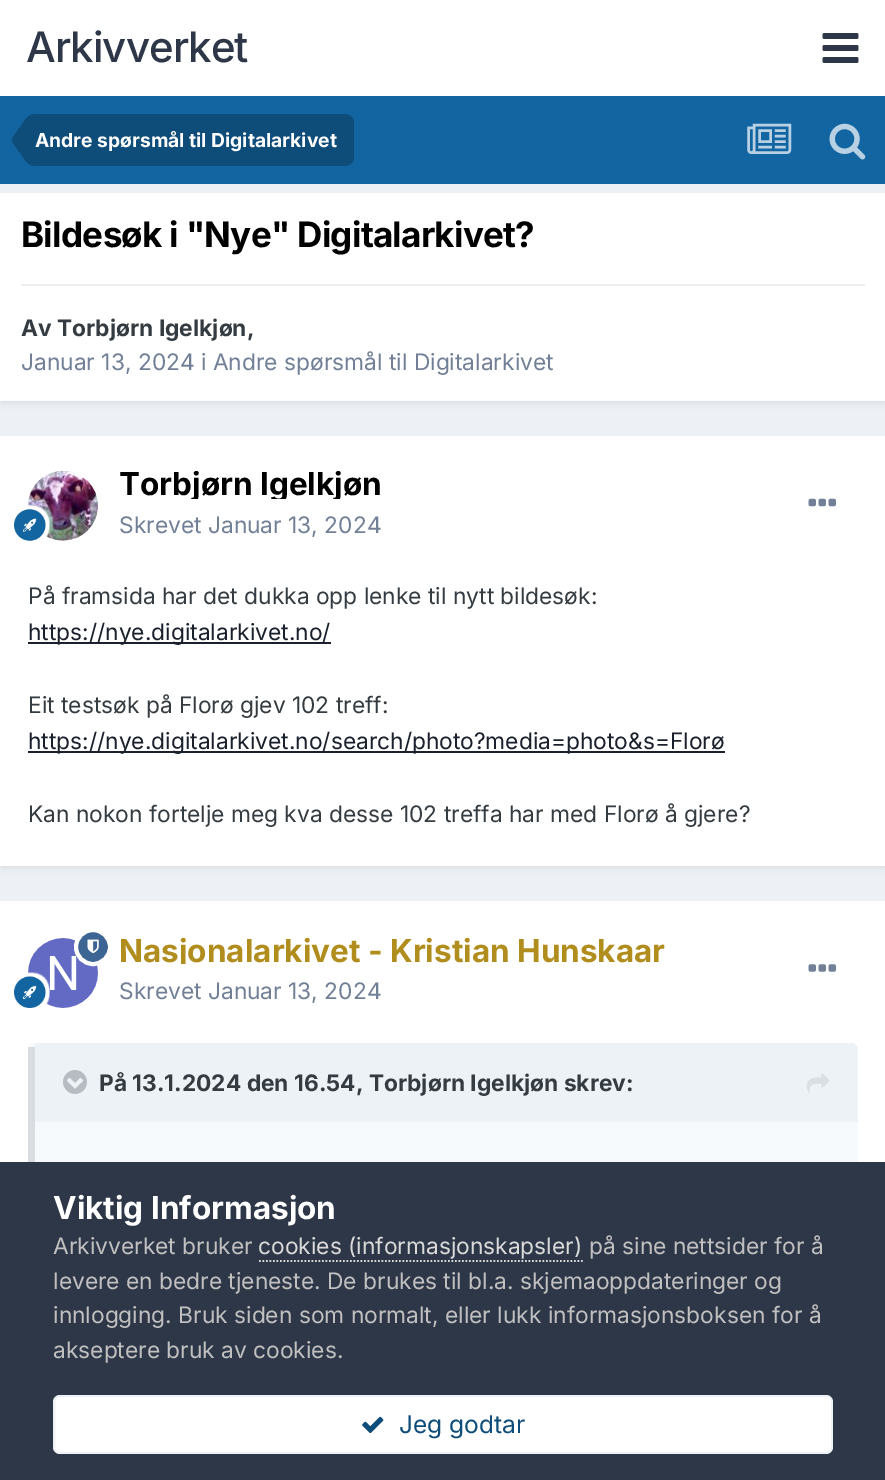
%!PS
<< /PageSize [885 1480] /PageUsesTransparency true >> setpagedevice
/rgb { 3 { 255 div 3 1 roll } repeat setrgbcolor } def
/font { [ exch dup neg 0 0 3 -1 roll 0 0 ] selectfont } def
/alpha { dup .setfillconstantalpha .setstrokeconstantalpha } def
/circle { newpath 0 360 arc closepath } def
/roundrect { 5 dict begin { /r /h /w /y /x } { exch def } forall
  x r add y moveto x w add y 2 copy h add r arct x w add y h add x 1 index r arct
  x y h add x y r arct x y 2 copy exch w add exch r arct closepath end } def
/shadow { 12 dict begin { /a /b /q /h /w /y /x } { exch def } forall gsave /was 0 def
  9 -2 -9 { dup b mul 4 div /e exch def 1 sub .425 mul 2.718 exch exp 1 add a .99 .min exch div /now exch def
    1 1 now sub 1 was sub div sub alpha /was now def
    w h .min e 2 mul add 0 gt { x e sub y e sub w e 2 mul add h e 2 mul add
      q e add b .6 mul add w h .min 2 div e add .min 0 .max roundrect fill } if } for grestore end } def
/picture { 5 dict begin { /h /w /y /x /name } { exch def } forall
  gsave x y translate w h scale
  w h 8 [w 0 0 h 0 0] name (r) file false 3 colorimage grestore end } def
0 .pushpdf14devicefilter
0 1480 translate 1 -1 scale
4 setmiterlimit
237 240 244 rgb
0 0 885 1480 rectfill
255 255 255 rgb
0 0 885 96 rectfill
(img/1.rgb) 822 33 37 30 picture
18 101 161 rgb
0 96 885 88 rectfill
14 76 121 rgb
35 114 moveto 345 114 lineto 350 114 354 118 354 123 curveto 354 157 lineto 354 162 350 166 345 166 curveto 35 166 lineto closepath fill
35 140 moveto 35 166 lineto 31 166 27.5 164 25 160 curveto 12.5 142.5 lineto 12 140 lineto closepath 35 140 moveto 12 140 lineto 12.5 137.5 lineto 25 120 lineto 27.5 116 31 114 35 114 curveto closepath fill
(img/2.rgb) 747 123 45 31 picture
(img/3.rgb) 829 123 37 37 picture
45 55 72 rgb
2 198 882 205 0 3.5 0.1 shadow
255 255 255 rgb
0 193 885 208 rectfill
239 239 240 rgb
21 284 844 2 rectfill
45 55 72 rgb
2 441 882 427 0 3.5 0.1 shadow
255 255 255 rgb
0 436 885 430 rectfill
(img/4.rgb) 28 471 70 70 picture
(img/5.rgb) 14 505 36 36 picture
(img/6.rgb) 808 498 28 9 picture
[
  [28 642 303 2 26 32 44]
  [28 751 697 2 26 32 44]
  [0 901 885 261 255 255 255]
] { aload pop rgb rectfill } forall
(img/8.rgb) 28 938 70 70 picture
61 101 148 rgb
93 947 17 circle gsave fill grestore
255 255 255 rgb
4 setlinewidth
stroke
(img/7.rgb) 87 939 12 15 picture
(img/9.rgb) 14 972 36 36 picture
(img/10.rgb) 808 964 28 8 picture
247 250 252 rgb
28 1043 830 165 7 roundrect fill
0.15 alpha
45 55 72 rgb
28 1047 7 115 rectfill
1 alpha
237 242 247 rgb
35 1043 moveto 851 1043 lineto 855 1043 858 1046 858 1050 curveto 858 1122 lineto 35 1122 lineto closepath fill
(img/11.rgb) 63 1070 24 24 picture
(img/12.rgb) 806 1073 24 21 picture
45 55 72 rgb
0 1162 885 318 rectfill
218 218 218 rgb
1.8 setlinewidth
[1.75 1.75] 0 setdash
259 1261 moveto 583 1261 lineto stroke
255 255 255 rgb
53 1395 780 59 7 roundrect fill
0.07 alpha
14 76 121 rgb
2 setlinewidth
[] 0 setdash
54 1396 778 57 6 roundrect stroke
1 alpha
(img/13.rgb) 362 1416 22 17 picture
/Inter-Medium 42 font
45 55 72 rgb
26 62 moveto -0.9 0 (Arkivverket) ashow
/Inter-Bold 19.25 font
255 255 255 rgb
35 147 moveto (Andre spørsmål til Digitalarkivet) show
/Inter-Bold 35 font
0 0 0 rgb
21 247 moveto -0.7 0 (Bildesøk i "Nye" Digitalarkivet?) ashow
/Inter-Bold 22.75 font
53 60 65 rgb
21 336 moveto (Av Torbjørn Igelkjøn,) show
/Inter-Regular 22.75 font
113 128 150 rgb
21 370 moveto (Januar 13, 2024 i Andre spørsmål til Digitalarkivet) show
gsave
119 471 263 28 rectclip
/Inter-Bold 31.5 font
0 0 0 rgb
119 495 moveto (Torbjørn Igelkjøn) show
grestore
119 533 moveto (Skrevet Januar 13, 2024) show
53 60 65 rgb
28 604 moveto (På framsida har det dukka opp lenke til nytt bildesøk:) show
26 32 44 rgb
28 640 moveto (https://nye.digitalarkivet.no/) show
53 60 65 rgb
28 713 moveto (Eit testsøk på Florø gjev 102 treff:) show
26 32 44 rgb
28 749 moveto (https://nye.digitalarkivet.no/search/photo?media=photo&s=Florø) show
53 60 65 rgb
28 822 moveto (Kan nokon fortelje meg kva desse 102 treffa har med Florø å gjere?) show
gsave
119 936 546 28 rectclip
/Inter-Bold 31.5 font
177 141 30 rgb
119 962 moveto (Nasjonalarkivet - Kristian Hunskaar) show
grestore
113 128 150 rgb
119 999 moveto (Skrevet Januar 13, 2024) show
/Inter-Bold 22.75 font
53 60 65 rgb
99 1091 moveto (På 13.1.2024 den 16.54, Torbjørn Igelkjøn skrev:) show
/Inter-Bold 31.5 font
255 255 255 rgb
53 1219 moveto (Viktig Informasjon) show
/Inter-Regular 22.75 font
192 192 192 rgb
53 1254 moveto (Arkivverket bruker) show
218 218 218 rgb
258 1254 moveto (cookies \(informasjonskapsler\)) show
192 192 192 rgb
[
  [(på sine nettsider for å) 589 1254]
  [(levere en bedre tjeneste. De brukes til bl.a. skjemaoppdateringer og) 53 1289]
  [(innlogging. Bruk siden som normalt, eller lukk informasjonsboksen for å) 53 1323]
  [(akseptere bruk av cookies.) 53 1358]
] { aload pop moveto show } forall
/Inter-Regular 24.5 font
14 76 121 rgb
399 1433 moveto (Jeg godtar) show
.poppdf14devicefilter showpage
